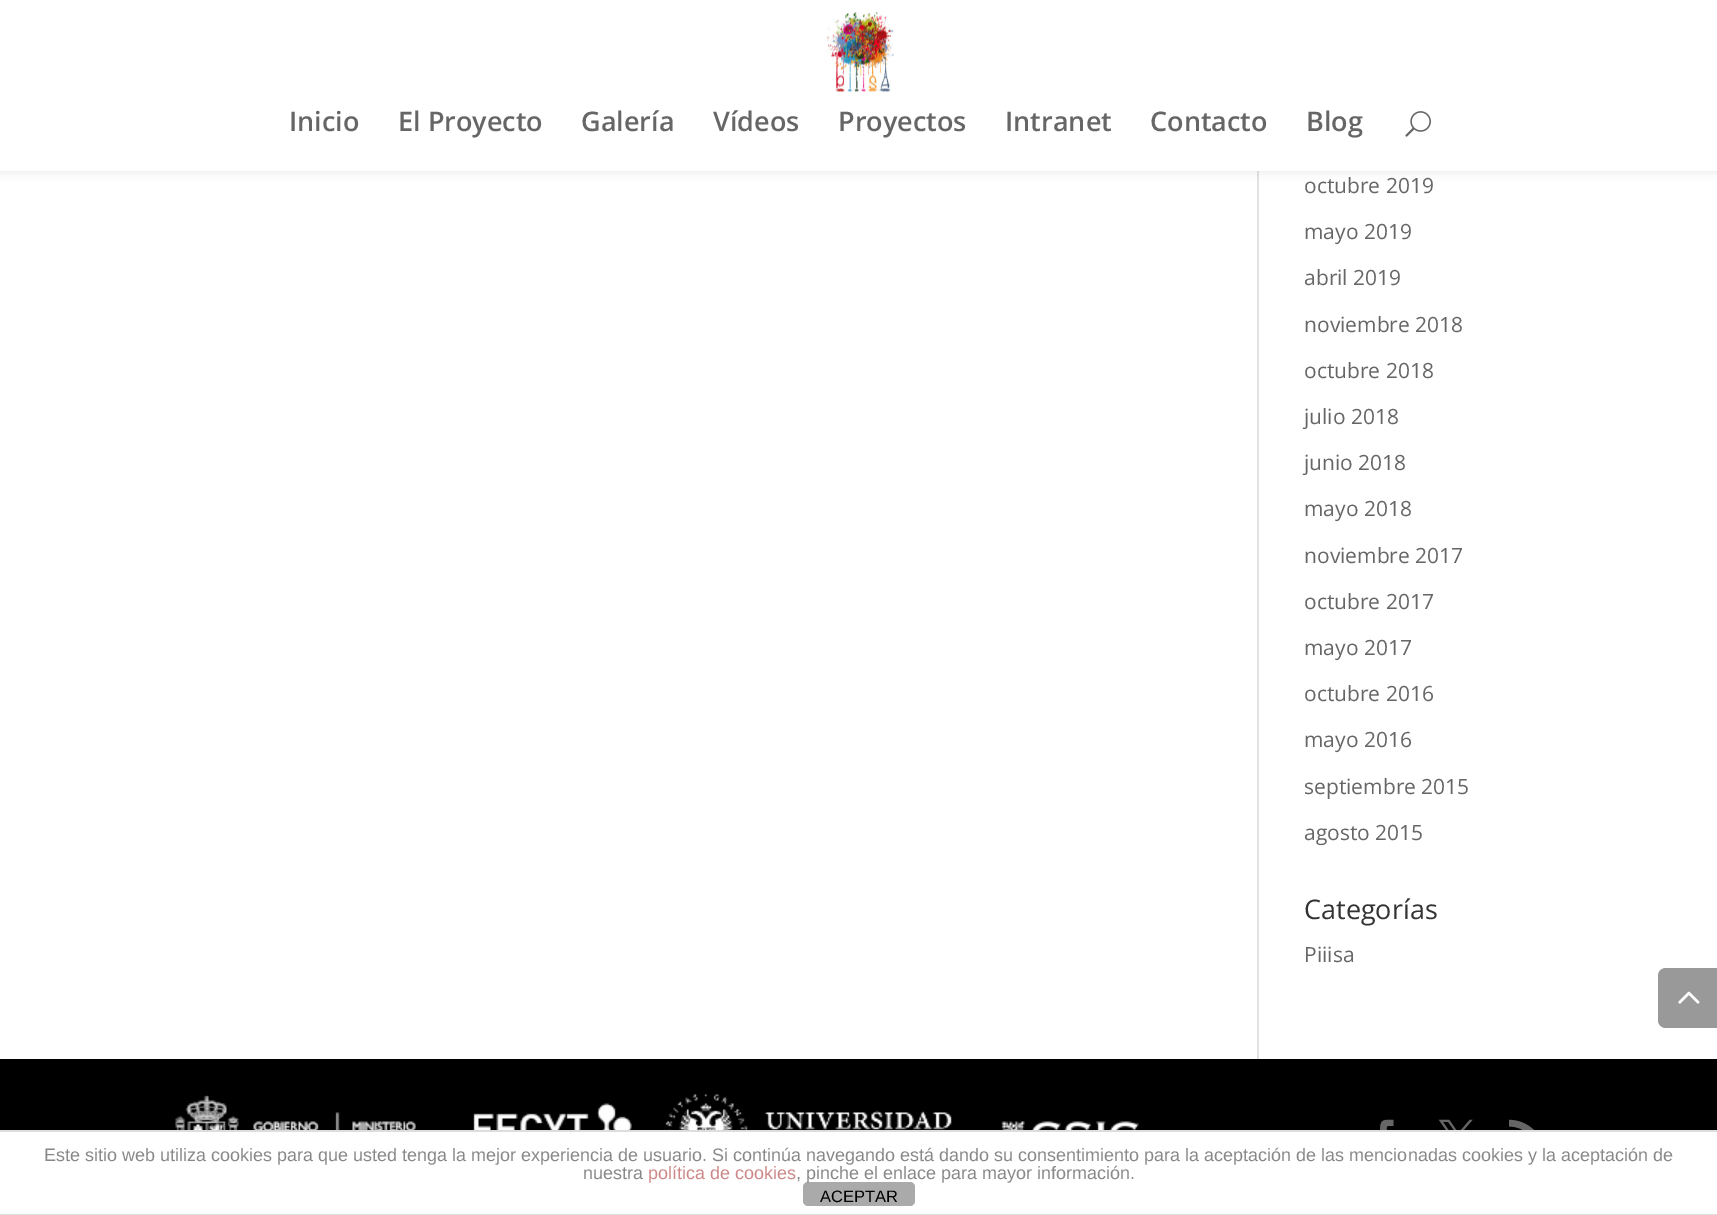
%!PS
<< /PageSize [1717 1215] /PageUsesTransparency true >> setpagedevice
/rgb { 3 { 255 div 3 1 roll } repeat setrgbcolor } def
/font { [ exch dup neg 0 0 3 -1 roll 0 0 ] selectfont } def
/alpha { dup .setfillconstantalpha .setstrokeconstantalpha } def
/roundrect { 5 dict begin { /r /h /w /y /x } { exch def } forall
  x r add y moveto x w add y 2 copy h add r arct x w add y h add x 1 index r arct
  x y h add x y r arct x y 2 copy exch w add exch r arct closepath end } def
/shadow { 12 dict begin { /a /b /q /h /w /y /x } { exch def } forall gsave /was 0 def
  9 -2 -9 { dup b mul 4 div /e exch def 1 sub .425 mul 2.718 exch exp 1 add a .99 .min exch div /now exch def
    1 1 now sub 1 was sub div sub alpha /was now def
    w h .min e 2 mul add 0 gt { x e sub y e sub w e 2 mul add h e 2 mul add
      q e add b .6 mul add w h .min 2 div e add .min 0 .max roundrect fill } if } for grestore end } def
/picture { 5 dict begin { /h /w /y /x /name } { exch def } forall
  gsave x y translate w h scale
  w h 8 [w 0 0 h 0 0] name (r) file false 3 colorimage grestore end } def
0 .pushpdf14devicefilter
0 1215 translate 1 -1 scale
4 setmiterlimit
255 255 255 rgb
0 0 1717 1215 rectfill
226 226 226 rgb
1257 171 2 888 rectfill
0 0 0 rgb
0 0 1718 171 0 5 0.1 shadow
255 255 255 rgb
0 0 1717 171 rectfill
(img/1.rgb) 827 11 67 82 picture
(img/2.rgb) 1405 111 26 26 picture
153 153 153 rgb
1666 968 moveto 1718 968 lineto 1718 1028 lineto 1666 1028 lineto 1661.5 1028 1658 1024.5 1658 1020 curveto 1658 976 lineto 1658 971.5 1661.5 968 1666 968 curveto closepath fill
(img/3.rgb) 1678 991 22 13 picture
0 0 0 rgb
0 1059 1717 71 rectfill
(img/4.rgb) 172 1095 475 35 picture
(img/5.rgb) 664 1094 288 36 picture
(img/6.rgb) 1001 1121 138 9 picture
(img/7.rgb) 1380 1119 14 11 picture
(img/8.rgb) 1438 1119 35 11 picture
(img/9.rgb) 1509 1119 25 11 picture
221 221 221 rgb
0 1130 1717 2 rectfill
0 1214 1717 1 rectfill
170 170 170 rgb
803 1182 112 24 5 roundrect fill
/OpenSans-SemiBold 27 font
102 102 102 rgb
[
  [(Inicio) 289 131]
  [(El Proyecto) 398 131]
  [(Galería) 581 131]
  [(Vídeos) 713 131]
  [(Proyectos) 838 131]
  [(Intranet) 1005 131]
  [(Contacto) 1150 131]
  [(Blog) 1306 131]
] { aload pop moveto show } forall
/OpenSans-Regular 21 font
[
  [(octubre 2019) 1304 193]
  [(mayo 2019) 1304 239]
  [(abril 2019) 1304 285]
  [(noviembre 2018) 1304 332]
  [(octubre 2018) 1304 378]
  [(julio 2018) 1304 424]
  [(junio 2018) 1304 470]
  [(mayo 2018) 1304 516]
  [(noviembre 2017) 1304 563]
  [(octubre 2017) 1304 609]
  [(mayo 2017) 1304 655]
  [(octubre 2016) 1304 701]
  [(mayo 2016) 1304 747]
  [(septiembre 2015) 1304 794]
  [(agosto 2015) 1304 840]
] { aload pop moveto show } forall
/OpenSans-Regular 27 font
51 51 51 rgb
1304 919 moveto (Categorías) show
/OpenSans-Regular 21 font
102 102 102 rgb
1304 962 moveto (Piiisa) show
/LiberationSans-Regular 18 font
136 136 136 rgb
44 1161 moveto (Este sitio web utiliza cookies para que usted tenga la mejor experiencia de usuario. Si continúa navegando está dando su consentimiento para la aceptación de las mencionadas cookies y la aceptación de) show
583 1179 moveto (nuestra) show
204 136 136 rgb
648 1179 moveto (política de cookies) show
136 136 136 rgb
796 1179 moveto (, pinche el enlace para mayor información.) show
/LiberationSans-Regular 16.5 font
0 0 0 rgb
820 1202 moveto (ACEPTAR) show
.poppdf14devicefilter showpage
